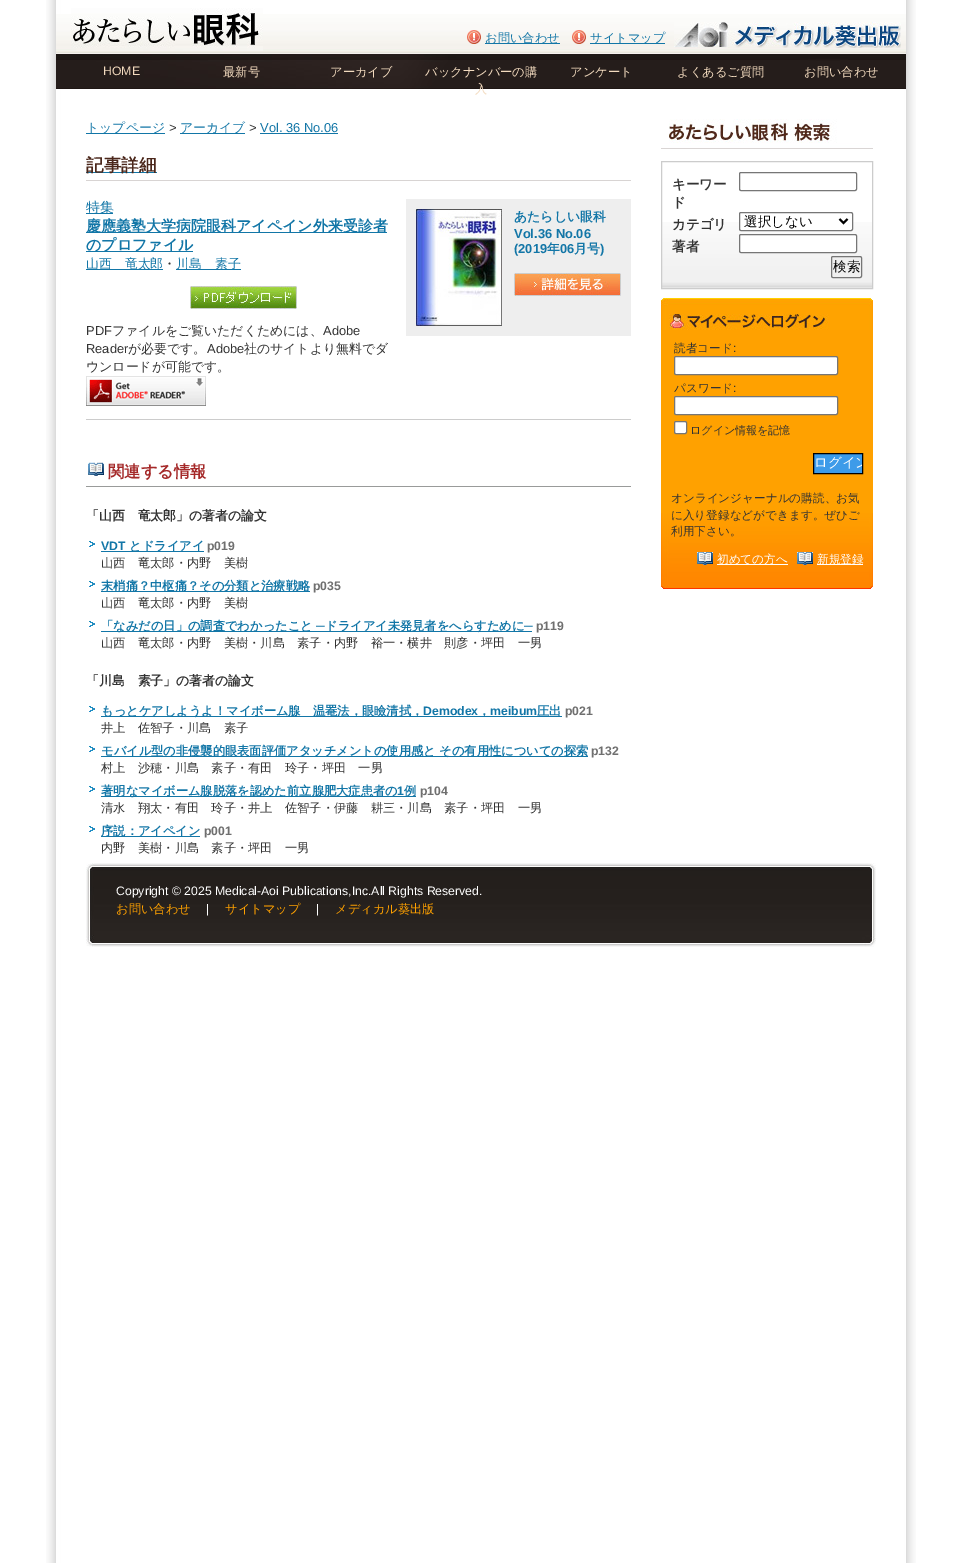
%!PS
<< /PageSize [962 1563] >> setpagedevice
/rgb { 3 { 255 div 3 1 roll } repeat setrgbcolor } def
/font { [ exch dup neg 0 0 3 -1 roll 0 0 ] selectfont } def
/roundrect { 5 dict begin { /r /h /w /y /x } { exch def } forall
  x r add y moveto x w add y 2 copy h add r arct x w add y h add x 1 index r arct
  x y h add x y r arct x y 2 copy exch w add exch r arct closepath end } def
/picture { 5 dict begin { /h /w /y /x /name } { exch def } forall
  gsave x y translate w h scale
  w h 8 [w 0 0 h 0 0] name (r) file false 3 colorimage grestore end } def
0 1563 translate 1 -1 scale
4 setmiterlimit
255 255 255 rgb
0 0 962 1563 rectfill
(img/1.rgb) 46 0 870 1563 picture
(img/2.rgb) 56 14 850 40 picture
(img/3.rgb) 71 8 192 43 picture
(img/4.rgb) 467 30 14 14 picture
18 118 167 rgb
485 43 75 1 rectfill
(img/4.rgb) 572 30 14 14 picture
590 43 75 1 rectfill
(img/5.rgb) 674 22 227 26 picture
(img/6.rgb) 56 54 850 35 picture
[
  [86 133 79 1 18 118 167]
  [180 133 65 1 18 118 167]
  [260 133 78 1 18 118 167]
  [86 180 545 1 216 212 211]
  [86 172 71 1 18 118 167]
  [406 199 225 137 238 238 238]
] { aload pop rgb rectfill } forall
(img/7.rgb) 416 209 86 117 picture
(img/8.rgb) 514 273 107 23 picture
[
  [86 213 27 1 18 118 167]
  [86 232 301 1 18 118 167]
  [86 251 107 1 18 118 167]
  [86 269 77 1 18 118 167]
  [176 269 65 1 18 118 167]
] { aload pop rgb rectfill } forall
(img/9.rgb) 190 286 107 23 picture
(img/10.rgb) 86 376 120 30 picture
204 204 204 rgb
86 419 545 1 rectfill
(img/11.rgb) 88 462 16 14 picture
153 155 154 rgb
86 486 545 1 rectfill
(img/12.rgb) 89 541 6 6 picture
18 118 167 rgb
101 551 103 1 rectfill
(img/12.rgb) 89 581 6 6 picture
101 591 209 1 rectfill
(img/12.rgb) 89 621 6 6 picture
101 631 431 1 rectfill
(img/12.rgb) 89 706 6 6 picture
101 716 461 1 rectfill
(img/12.rgb) 89 746 6 6 picture
101 756 487 1 rectfill
(img/12.rgb) 89 786 6 6 picture
101 796 315 1 rectfill
(img/12.rgb) 89 826 6 6 picture
101 836 99 1 rectfill
(img/13.rgb) 661 119 212 30 picture
(img/14.rgb) 662 222 210 66 picture
204 204 204 rgb
661.5 161.5 211 127 rectstroke
118 118 118 rgb
739.5 172.5 117 18 1.5 roundrect stroke
255 255 255 rgb
739.5 212.5 113 18 1.5 roundrect gsave fill grestore
118 118 118 rgb
stroke
0 0 0 rgb
2 setlinewidth
839.5 219 moveto 843.5 223 lineto 847.5 219 lineto stroke
255 255 255 rgb
739.5 234.5 117 18 1.5 roundrect gsave fill grestore
118 118 118 rgb
1 setlinewidth
stroke
239 239 239 rgb
831.5 256.5 30 21 1.5 roundrect gsave fill grestore
118 118 118 rgb
stroke
255 161 0 rgb
661 330 212 183 rectfill
(img/15.rgb) 661 298 212 32 picture
(img/16.rgb) 661 513 212 76 picture
255 255 255 rgb
674.5 356.5 163 18 1.5 roundrect gsave fill grestore
118 118 118 rgb
stroke
255 255 255 rgb
674.5 396.5 163 18 1.5 roundrect gsave fill grestore
118 118 118 rgb
stroke
255 255 255 rgb
674.5 421.5 12 12 1.5 roundrect gsave fill grestore
118 118 118 rgb
stroke
61 155 233 rgb
813.5 453.5 moveto 862.5 453.5 lineto 862.5 473.5 lineto 813.5 473.5 lineto closepath gsave fill grestore
0 0 0 rgb
stroke
(img/17.rgb) 697 552 16 13 picture
255 255 255 rgb
717 564 71 1 rectfill
(img/17.rgb) 797 552 16 13 picture
817 564 46 1 rectfill
(img/18.rgb) 86 863 790 84 picture
/WenQuanYiZenHei-Medium 12.25 font
18 118 167 rgb
485 42 moveto (お問い合わせ) show
590 42 moveto (サイトマップ) show
/LiberationSans-Regular 12.25 font
243 219 191 rgb
103 75 moveto (HOME) show
/WenQuanYiZenHei-Medium 12.25 font
[
  [(最新号) 223 76]
  [(アーカイブ) 330 76]
  [(バックナンバーの購) 425 76]
  [(入) 475 93]
  [(アンケート) 570 76]
  [(よくあるご質問) 677 76]
  [(お問い合わせ) 804 76]
] { aload pop moveto show } forall
/WenQuanYiZenHei-Medium 12.9 font
18 118 167 rgb
86 132 moveto (トップページ) show
/LiberationSans-Regular 12.9 font
51 51 51 rgb
169 132 moveto (>) show
/WenQuanYiZenHei-Medium 12.9 font
18 118 167 rgb
180 132 moveto (アーカイブ) show
/LiberationSans-Regular 12.9 font
51 51 51 rgb
249 132 moveto (>) show
18 118 167 rgb
260 132 moveto (Vol. 36 No.06) show
/WenQuanYiZenHei-Bold 17.5 font
75 39 27 rgb
86 171 moveto (記事詳細) show
/WenQuanYiZenHei-Bold 12.9 font
18 118 167 rgb
514 221 moveto (あたらしい眼科) show
/LiberationSans-Bold 12.9 font
514 238 moveto (Vol.36 No.06) show
514 253 moveto (\(2019) show
/WenQuanYiZenHei-Bold 12.9 font
547 253 moveto (年) show
/LiberationSans-Bold 12.9 font
560 253 moveto (06) show
/WenQuanYiZenHei-Bold 12.9 font
574 253 moveto (月号) show
/LiberationSans-Bold 12.9 font
600 253 moveto (\)) show
/WenQuanYiZenHei-Medium 14 font
86 212 moveto (特集) show
/WenQuanYiZenHei-Bold 15 font
86 231 moveto (慶應義塾大学病院眼科アイペイン外来受診者) show
86 250 moveto (のプロファイル) show
/WenQuanYiZenHei-Medium 12.9 font
86 268 moveto (山西　竜太郎) show
51 51 51 rgb
163 268 moveto (・) show
18 118 167 rgb
176 268 moveto (川島　素子) show
/LiberationSans-Regular 12.9 font
51 51 51 rgb
86 335 moveto (PDF) show
/WenQuanYiZenHei-Medium 12.9 font
112 335 moveto (ファイルをご覧いただくためには、) show
/LiberationSans-Regular 12.9 font
323 335 moveto (Adobe) show
86 353 moveto (Reader) show
/WenQuanYiZenHei-Medium 12.9 font
128 353 moveto (が必要です。) show
/LiberationSans-Regular 12.9 font
207 353 moveto (Adobe) show
/WenQuanYiZenHei-Medium 12.9 font
244 353 moveto (社のサイトより無料でダ) show
86 371 moveto (ウンロードが可能です。) show
/WenQuanYiZenHei-Bold 16.25 font
165 41 41 rgb
108 477 moveto (関連する情報) show
/WenQuanYiZenHei-Bold 12.9 font
51 51 51 rgb
86 520 moveto (「山西　竜太郎」の著者の論文) show
/LiberationSans-Bold 12.25 font
18 118 167 rgb
101 550 moveto (VDT) show
/WenQuanYiZenHei-Bold 12.25 font
129 550 moveto (とドライアイ) show
/LiberationSans-Bold 12.25 font
111 111 111 rgb
207 550 moveto (p019) show
/WenQuanYiZenHei-Medium 12.25 font
51 51 51 rgb
101 567 moveto (山西　竜太郎・内野　美樹) show
/WenQuanYiZenHei-Bold 12.25 font
18 118 167 rgb
101 590 moveto (末梢痛？中枢痛？その分類と治療戦略) show
/LiberationSans-Bold 12.25 font
111 111 111 rgb
313 590 moveto (p035) show
/WenQuanYiZenHei-Medium 12.25 font
51 51 51 rgb
101 607 moveto (山西　竜太郎・内野　美樹) show
/WenQuanYiZenHei-Bold 12.25 font
18 118 167 rgb
101 630 moveto (「なみだの日」の調査でわかったこと) show
/LiberationSans-Bold 12.25 font
316 630 moveto (─) show
/WenQuanYiZenHei-Bold 12.25 font
325 630 moveto (ドライアイ未発見者をへらすために) show
/LiberationSans-Bold 12.25 font
524 630 moveto (─) show
111 111 111 rgb
536 630 moveto (p119) show
/WenQuanYiZenHei-Medium 12.25 font
51 51 51 rgb
101 647 moveto (山西　竜太郎・内野　美樹・川島　素子・内野　裕一・横井　則彦・坪田　一男) show
/WenQuanYiZenHei-Bold 12.9 font
86 685 moveto (「川島　素子」の著者の論文) show
/WenQuanYiZenHei-Bold 12.25 font
18 118 167 rgb
101 715 moveto (もっとケアしようよ！マイボーム腺　温罨法，眼瞼清拭，) show
/LiberationSans-Bold 12.25 font
423 715 moveto (Demodex) show
/WenQuanYiZenHei-Bold 12.25 font
478 715 moveto (，) show
/LiberationSans-Bold 12.25 font
490 715 moveto (meibum) show
/WenQuanYiZenHei-Bold 12.25 font
537 715 moveto (圧出) show
/LiberationSans-Bold 12.25 font
111 111 111 rgb
565 715 moveto (p021) show
/WenQuanYiZenHei-Medium 12.25 font
51 51 51 rgb
101 732 moveto (井上　佐智子・川島　素子) show
/WenQuanYiZenHei-Bold 12.25 font
18 118 167 rgb
101 755 moveto (モバイル型の非侵襲的眼表面評価アタッチメントの使用感と その有用性についての探索) show
/LiberationSans-Bold 12.25 font
111 111 111 rgb
591 755 moveto (p132) show
/WenQuanYiZenHei-Medium 12.25 font
51 51 51 rgb
101 772 moveto (村上　沙穂・川島　素子・有田　玲子・坪田　一男) show
/WenQuanYiZenHei-Bold 12.25 font
18 118 167 rgb
101 795 moveto (著明なマイボーム腺脱落を認めた前立腺肥大症患者の) show
/LiberationSans-Bold 12.25 font
397 795 moveto (1) show
/WenQuanYiZenHei-Bold 12.25 font
404 795 moveto (例) show
/LiberationSans-Bold 12.25 font
111 111 111 rgb
420 795 moveto (p104) show
/WenQuanYiZenHei-Medium 12.25 font
51 51 51 rgb
101 812 moveto (清水　翔太・有田　玲子・井上　佐智子・伊藤　耕三・川島　素子・坪田　一男) show
/WenQuanYiZenHei-Bold 12.25 font
18 118 167 rgb
101 835 moveto (序説：アイペイン) show
/LiberationSans-Bold 12.25 font
111 111 111 rgb
204 835 moveto (p001) show
/WenQuanYiZenHei-Medium 12.25 font
51 51 51 rgb
101 852 moveto (内野　美樹・川島　素子・坪田　一男) show
/WenQuanYiZenHei-Bold 13.5 font
[
  [(キーワー) 672 189]
  [(ド) 672 207]
  [(カテゴリ) 672 229]
] { aload pop moveto show } forall
/WenQuanYiZenHei-Medium 13.5 font
0 0 0 rgb
744 226 moveto (選択しない) show
/WenQuanYiZenHei-Bold 13.5 font
51 51 51 rgb
672 251 moveto (著者) show
/WenQuanYiZenHei-Medium 13.5 font
0 0 0 rgb
833 271 moveto (検索) show
/WenQuanYiZenHei-Medium 11.6 font
51 51 51 rgb
674 352 moveto (読者コード) show
/LiberationSans-Regular 11.6 font
733 352 moveto (:) show
/WenQuanYiZenHei-Medium 11.6 font
674 392 moveto (パスワード) show
/LiberationSans-Regular 11.6 font
733 392 moveto (:) show
/WenQuanYiZenHei-Medium 11 font
690 434 moveto (ログイン情報を記憶) show
gsave
814 454 48 19 rectclip
/WenQuanYiZenHei-Medium 13.5 font
255 255 255 rgb
814 467 moveto (ログイン) show
grestore
/WenQuanYiZenHei-Medium 11.6 font
[
  [(オンラインジャーナルの購読、お気) 671 502]
  [(に入り登録などができます。ぜひご) 671 519]
  [(利用下さい。) 671 535]
] { aload pop moveto show } forall
255 255 255 rgb
717 563 moveto (初めての方へ) show
817 563 moveto (新規登録) show
/LiberationSans-Regular 12.25 font
116 895 moveto (Copyright © 2025 Medical-Aoi Publications,Inc.All Rights Reserved.) show
/WenQuanYiZenHei-Medium 12.25 font
255 161 0 rgb
116 913 moveto (お問い合わせ) show
/LiberationSans-Regular 12.25 font
255 255 255 rgb
206 913 moveto (|) show
/WenQuanYiZenHei-Medium 12.25 font
255 161 0 rgb
225 913 moveto (サイトマップ) show
/LiberationSans-Regular 12.25 font
255 255 255 rgb
316 913 moveto (|) show
/WenQuanYiZenHei-Medium 12.25 font
255 161 0 rgb
335 913 moveto (メディカル葵出版) show
showpage
